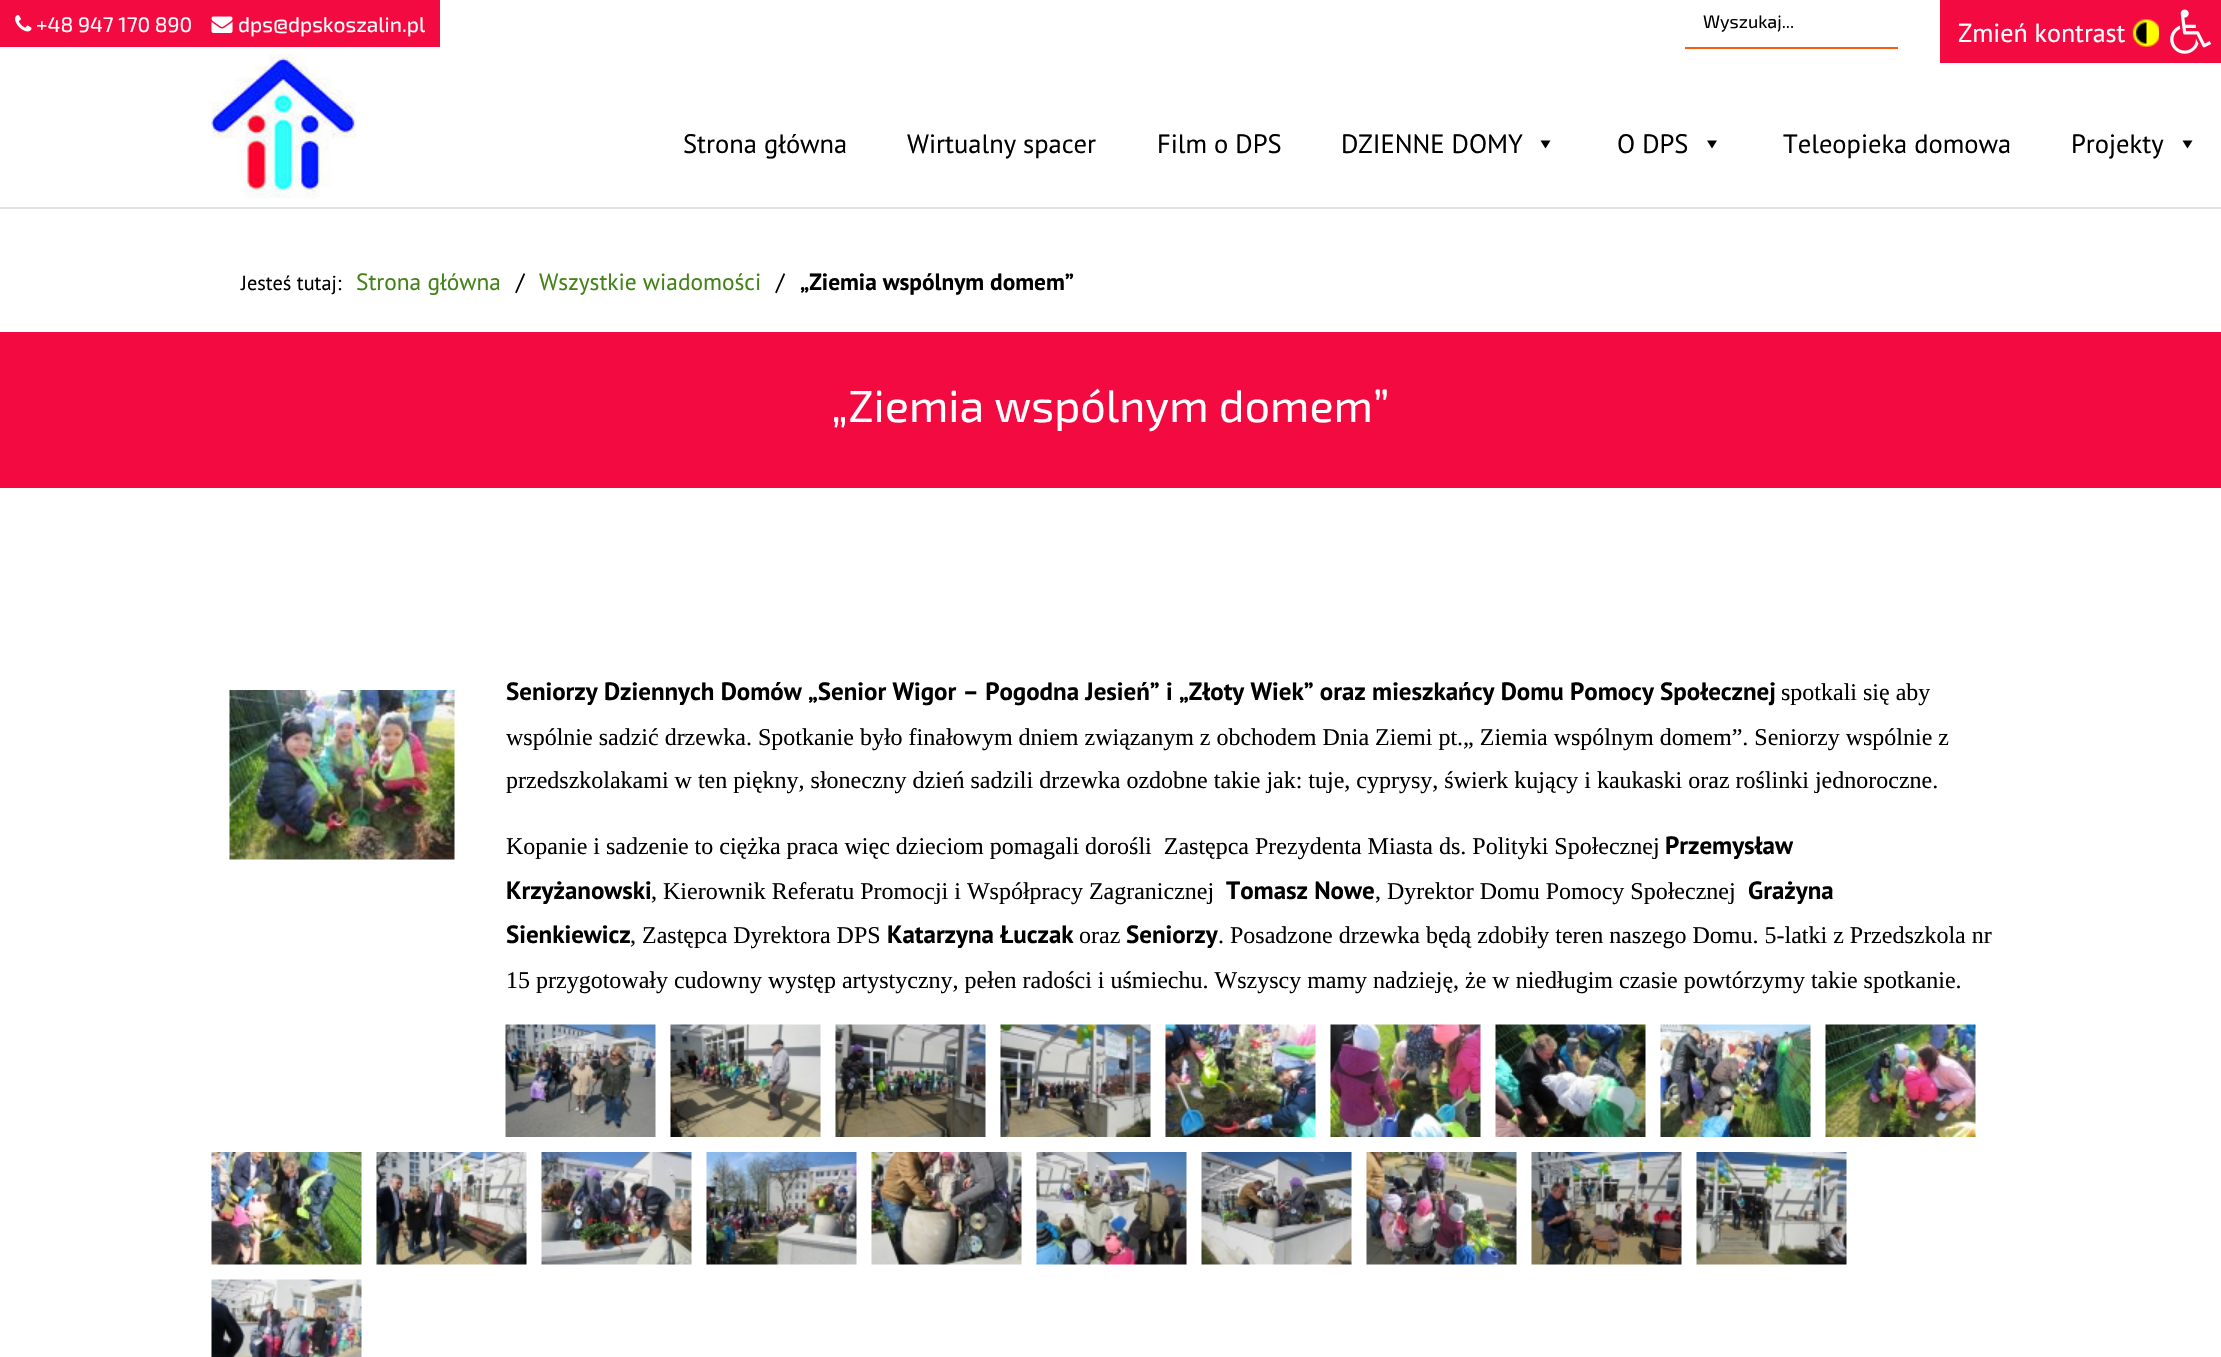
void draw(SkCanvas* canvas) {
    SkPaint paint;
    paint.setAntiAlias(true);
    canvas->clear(0xFFFFFFFF);
    paint.setColor(0xFFE2E2E2);
    canvas->drawRect(SkRect::MakeXYWH(0, 207, 2221, 2), paint);
    paint.setColor(0xFFF30A40);
    canvas->drawRect(SkRect::MakeXYWH(0, 0, 440, 47), paint);
    canvas->drawImageRect(SkImages::DeferredFromEncodedData(SkData::MakeFromFileName("img1.png")), SkRect::MakeXYWH(15, 15, 17, 17), SkSamplingOptions());
    SkFont font1(fontMgr->matchFamilyStyle("Exo 2", SkFontStyle::Normal()), 21);
    font1.setSubpixel(true);
    paint.setColor(0xFFFFFFFF);
    canvas->drawString("+48 947 170 890", 36, 32, font1, paint);
    canvas->drawImageRect(SkImages::DeferredFromEncodedData(SkData::MakeFromFileName("img2.png")), SkRect::MakeXYWH(211, 16, 22, 17), SkSamplingOptions());
    canvas->drawString("dps@dpskoszalin.pl", 238, 32, font1, paint);
    paint.setColor(0xFFFA5B0F);
    canvas->drawRect(SkRect::MakeXYWH(1685, 47, 213, 2), paint);
    SkFont font2(fontMgr->matchFamilyStyle("Exo 2", SkFontStyle::Normal()), 18);
    font2.setSubpixel(true);
    paint.setColor(0xFF000000);
    canvas->drawString("Wyszukaj...", 1703, 28, font2, paint);
    paint.setColor(0xFFF30A40);
    canvas->drawRect(SkRect::MakeXYWH(1940, 0, 281, 63), paint);
    SkFont font3(fontMgr->matchFamilyStyle("PT Sans", SkFontStyle::Normal()), 25);
    font3.setSubpixel(true);
    paint.setColor(0xFFFFFFFF);
    canvas->drawString("Zmień kontrast", 1958, 42, font3, paint);
    canvas->drawImageRect(SkImages::DeferredFromEncodedData(SkData::MakeFromFileName("img3.png")), SkRect::MakeXYWH(2132, 19, 27, 28), SkSamplingOptions());
    canvas->drawImageRect(SkImages::DeferredFromEncodedData(SkData::MakeFromFileName("img4.png")), SkRect::MakeXYWH(211, 54, 146, 145), SkSamplingOptions());
    SkFont font4(fontMgr->matchFamilyStyle("PT Sans", SkFontStyle::Normal()), 25.5f);
    font4.setSubpixel(true);
    paint.setColor(0xFF000000);
    canvas->drawString("Strona główna", 683, 153, font4, paint);
    canvas->drawString("Wirtualny spacer", 907, 153, font4, paint);
    canvas->drawString("Film o DPS", 1157, 153, font4, paint);
    canvas->drawString("DZIENNE DOMY", 1341, 153, font4, paint);
    canvas->drawPath(SkPathBuilder().moveTo(1550.5f, 140.5f).lineTo(1545.5f, 148.5f).lineTo(1540.5f, 140.5f).close().detach(), paint);
    canvas->drawString("O DPS", 1617, 153, font4, paint);
    canvas->drawPath(SkPathBuilder().moveTo(1717, 140.5f).lineTo(1712, 148.5f).lineTo(1707, 140.5f).close().detach(), paint);
    canvas->drawString("Teleopieka domowa", 1783, 153, font4, paint);
    canvas->drawString("Projekty", 2071, 153, font4, paint);
    canvas->drawPath(SkPathBuilder().moveTo(2192.5f, 140.5f).lineTo(2187.5f, 148.5f).lineTo(2182.5f, 140.5f).close().detach(), paint);
    SkFont font5(fontMgr->matchFamilyStyle("PT Sans", SkFontStyle::Normal()), 19.5f);
    font5.setSubpixel(true);
    canvas->drawString("Jesteś tutaj:", 241, 290, font5, paint);
    SkFont font6(fontMgr->matchFamilyStyle("PT Sans", SkFontStyle::Normal()), 22.5f);
    font6.setSubpixel(true);
    paint.setColor(0xFF428217);
    canvas->drawString("Strona główna", 356, 290, font6, paint);
    paint.setColor(0xFF000000);
    canvas->drawString("/", 516, 290, font6, paint);
    paint.setColor(0xFF428217);
    canvas->drawString("Wszystkie wiadomości", 539, 290, font6, paint);
    paint.setColor(0xFF000000);
    canvas->drawString("/", 776, 290, font6, paint);
    SkFont font7(fontMgr->matchFamilyStyle("PT Sans", SkFontStyle::Bold()), 22.5f);
    font7.setSubpixel(true);
    canvas->drawString("„Ziemia wspólnym domem”", 800, 290, font7, paint);
    paint.setColor(0xFFF30A40);
    canvas->drawRect(SkRect::MakeXYWH(0, 332, 2221, 156), paint);
    SkFont font8(fontMgr->matchFamilyStyle("Exo 2", SkFontStyle::Normal()), 45);
    font8.setSubpixel(true);
    paint.setColor(0xFFFFFFFF);
    canvas->drawString("„Ziemia wspólnym domem”", 831, 422, font8, paint);
    canvas->drawImageRect(SkImages::DeferredFromEncodedData(SkData::MakeFromFileName("img5.png")), SkRect::MakeXYWH(229, 690, 226, 170), SkSamplingOptions());
    SkFont font9(fontMgr->matchFamilyStyle("PT Sans", SkFontStyle::Bold()), 24);
    font9.setSubpixel(true);
    paint.setColor(0xFF000000);
    canvas->drawString("Seniorzy Dziennych Domów „Senior Wigor – Pogodna Jesień” i „Złoty Wiek” oraz mieszkańcy Domu Pomocy Społecznej", 506, 700, font9, paint);
    SkFont font10(fontMgr->matchFamilyStyle("Liberation Serif", SkFontStyle::Normal()), 24);
    font10.setSubpixel(true);
    canvas->drawString("spotkali się aby", 1781, 700, font10, paint);
    canvas->drawString("wspólnie sadzić drzewka. Spotkanie było finałowym dniem związanym z obchodem Dnia Ziemi pt.„ Ziemia wspólnym domem”. Seniorzy wspólnie z", 506, 745, font10, paint);
    canvas->drawString("przedszkolakami w ten piękny, słoneczny dzień sadzili drzewka ozdobne takie jak: tuje, cyprysy, świerk kujący i kaukaski oraz roślinki jednoroczne.", 506, 788, font10, paint);
    canvas->drawString("Kopanie i sadzenie to ciężka praca więc dzieciom pomagali dorośli  Zastępca Prezydenta Miasta ds. Polityki Społecznej", 506, 854, font10, paint);
    canvas->drawString("Przemysław", 1665, 854, font9, paint);
    canvas->drawString("Krzyżanowski", 506, 899, font9, paint);
    canvas->drawString(", Kierownik Referatu Promocji i Współpracy Zagranicznej", 651, 899, font10, paint);
    canvas->drawString("Tomasz Nowe", 1226, 899, font9, paint);
    canvas->drawString(", Dyrektor Domu Pomocy Społecznej", 1375, 899, font10, paint);
    canvas->drawString("Grażyna", 1748, 899, font9, paint);
    canvas->drawString("Sienkiewicz", 506, 943, font9, paint);
    canvas->drawString(", Zastępca Dyrektora DPS", 630, 943, font10, paint);
    canvas->drawString("Katarzyna Łuczak", 887, 943, font9, paint);
    canvas->drawString("oraz", 1079, 943, font10, paint);
    canvas->drawString("Seniorzy", 1126, 943, font9, paint);
    canvas->drawString(". Posadzone drzewka będą zdobiły teren naszego Domu. 5-latki z Przedszkola nr", 1218, 943, font10, paint);
    canvas->drawString("15 przygotowały cudowny występ artystyczny, pełen radości i uśmiechu. Wszyscy mamy nadzieję, że w niedługim czasie powtórzymy takie spotkanie.", 506, 988, font10, paint);
    canvas->drawImageRect(SkImages::DeferredFromEncodedData(SkData::MakeFromFileName("img6.png")), SkRect::MakeXYWH(505, 1024, 151, 113), SkSamplingOptions());
    canvas->drawImageRect(SkImages::DeferredFromEncodedData(SkData::MakeFromFileName("img7.png")), SkRect::MakeXYWH(670, 1024, 151, 113), SkSamplingOptions());
    canvas->drawImageRect(SkImages::DeferredFromEncodedData(SkData::MakeFromFileName("img8.png")), SkRect::MakeXYWH(835, 1024, 151, 113), SkSamplingOptions());
    canvas->drawImageRect(SkImages::DeferredFromEncodedData(SkData::MakeFromFileName("img9.png")), SkRect::MakeXYWH(1000, 1024, 151, 113), SkSamplingOptions());
    canvas->drawImageRect(SkImages::DeferredFromEncodedData(SkData::MakeFromFileName("img10.png")), SkRect::MakeXYWH(1165, 1024, 151, 113), SkSamplingOptions());
    canvas->drawImageRect(SkImages::DeferredFromEncodedData(SkData::MakeFromFileName("img11.png")), SkRect::MakeXYWH(1330, 1024, 151, 113), SkSamplingOptions());
    canvas->drawImageRect(SkImages::DeferredFromEncodedData(SkData::MakeFromFileName("img12.png")), SkRect::MakeXYWH(1495, 1024, 151, 113), SkSamplingOptions());
    canvas->drawImageRect(SkImages::DeferredFromEncodedData(SkData::MakeFromFileName("img13.png")), SkRect::MakeXYWH(1660, 1024, 151, 113), SkSamplingOptions());
    canvas->drawImageRect(SkImages::DeferredFromEncodedData(SkData::MakeFromFileName("img14.png")), SkRect::MakeXYWH(1825, 1024, 151, 113), SkSamplingOptions());
    canvas->drawImageRect(SkImages::DeferredFromEncodedData(SkData::MakeFromFileName("img15.png")), SkRect::MakeXYWH(211, 1152, 151, 113), SkSamplingOptions());
    canvas->drawImageRect(SkImages::DeferredFromEncodedData(SkData::MakeFromFileName("img16.png")), SkRect::MakeXYWH(376, 1152, 151, 113), SkSamplingOptions());
    canvas->drawImageRect(SkImages::DeferredFromEncodedData(SkData::MakeFromFileName("img17.png")), SkRect::MakeXYWH(541, 1152, 151, 113), SkSamplingOptions());
    canvas->drawImageRect(SkImages::DeferredFromEncodedData(SkData::MakeFromFileName("img18.png")), SkRect::MakeXYWH(706, 1152, 151, 113), SkSamplingOptions());
    canvas->drawImageRect(SkImages::DeferredFromEncodedData(SkData::MakeFromFileName("img19.png")), SkRect::MakeXYWH(871, 1152, 151, 113), SkSamplingOptions());
    canvas->drawImageRect(SkImages::DeferredFromEncodedData(SkData::MakeFromFileName("img20.png")), SkRect::MakeXYWH(1036, 1152, 151, 113), SkSamplingOptions());
    canvas->drawImageRect(SkImages::DeferredFromEncodedData(SkData::MakeFromFileName("img21.png")), SkRect::MakeXYWH(1201, 1152, 151, 113), SkSamplingOptions());
    canvas->drawImageRect(SkImages::DeferredFromEncodedData(SkData::MakeFromFileName("img22.png")), SkRect::MakeXYWH(1366, 1152, 151, 113), SkSamplingOptions());
    canvas->drawImageRect(SkImages::DeferredFromEncodedData(SkData::MakeFromFileName("img23.png")), SkRect::MakeXYWH(1531, 1152, 151, 113), SkSamplingOptions());
    canvas->drawImageRect(SkImages::DeferredFromEncodedData(SkData::MakeFromFileName("img24.png")), SkRect::MakeXYWH(1696, 1152, 151, 113), SkSamplingOptions());
    canvas->drawImageRect(SkImages::DeferredFromEncodedData(SkData::MakeFromFileName("img25.png")), SkRect::MakeXYWH(211, 1279, 151, 78), SkSamplingOptions());
    canvas->drawImageRect(SkImages::DeferredFromEncodedData(SkData::MakeFromFileName("img26.png")), SkRect::MakeXYWH(2170, 9, 42, 45), SkSamplingOptions());
}
